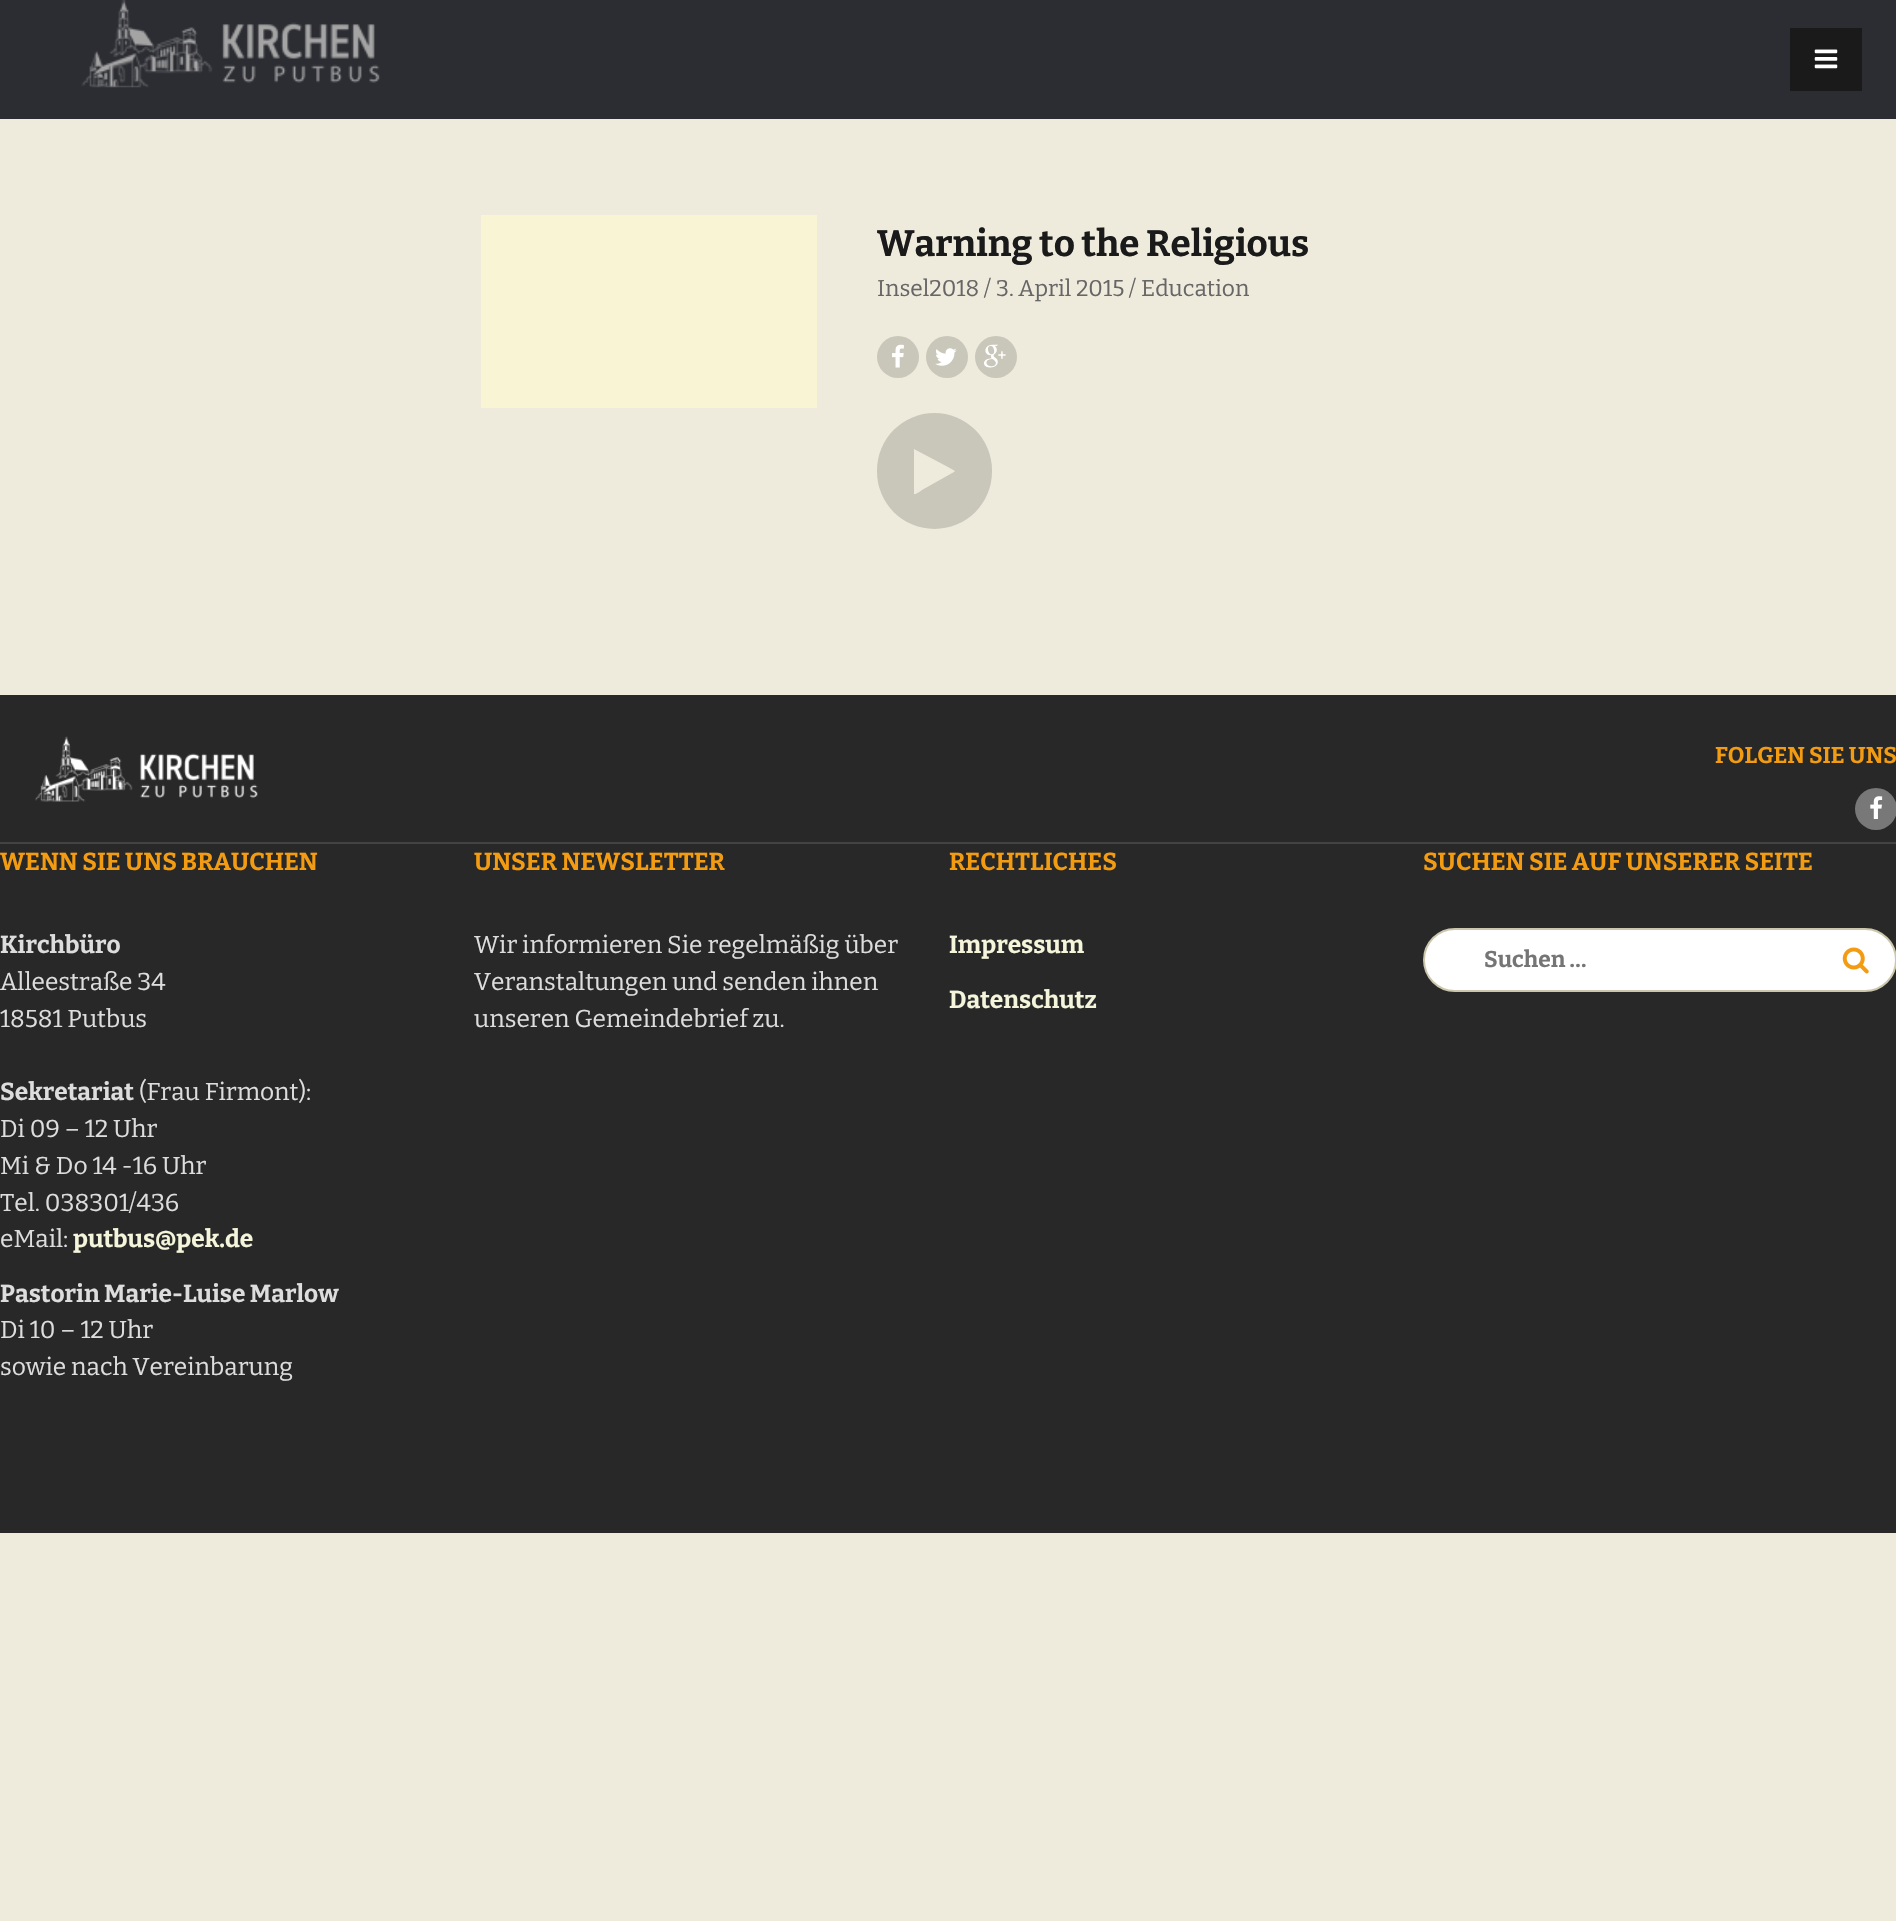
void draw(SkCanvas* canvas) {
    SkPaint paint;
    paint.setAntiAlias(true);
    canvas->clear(0xFFEEEBDD);
    paint.setColor(0xFF2C2D33);
    canvas->drawRect(SkRect::MakeXYWH(0, 0, 1896, 119), paint);
    canvas->drawImageRect(SkImages::DeferredFromEncodedData(SkData::MakeFromFileName("img1.png")), SkRect::MakeXYWH(81, 0, 299, 88), SkSamplingOptions());
    paint.setColor(0xFF1A1A1A);
    canvas->drawRect(SkRect::MakeXYWH(1790, 28, 72, 63), paint);
    canvas->drawImageRect(SkImages::DeferredFromEncodedData(SkData::MakeFromFileName("img2.png")), SkRect::MakeXYWH(1814, 49, 24, 20), SkSamplingOptions());
    paint.setColor(0xFFF9F4D4);
    canvas->drawRect(SkRect::MakeXYWH(481, 215, 336, 193), paint);
    SkFont font1(fontMgr->matchFamilyStyle("Bitter", SkFontStyle::Bold()), 36.75f);
    font1.setSubpixel(true);
    paint.setColor(0xFF1A1A1A);
    canvas->drawString("Warning to the Religious", 877, 256, font1, paint);
    SkFont font2(fontMgr->matchFamilyStyle("Bitter", SkFontStyle::Normal()), 22.75f);
    font2.setSubpixel(true);
    paint.setColor(0xFF676666);
    canvas->drawString("Insel2018 /", 877, 296, font2, paint);
    canvas->drawString("3. April 2015 /", 996, 296, font2, paint);
    canvas->drawString("Education", 1141, 296, font2, paint);
    paint.setColor(0xFFC9C6BA);
    canvas->drawCircle(898, 357, 21, paint);
    canvas->drawImageRect(SkImages::DeferredFromEncodedData(SkData::MakeFromFileName("img3.png")), SkRect::MakeXYWH(892, 344, 12, 24), SkSamplingOptions());
    canvas->drawCircle(947, 357, 21, paint);
    canvas->drawImageRect(SkImages::DeferredFromEncodedData(SkData::MakeFromFileName("img4.png")), SkRect::MakeXYWH(935, 348, 22, 18), SkSamplingOptions());
    canvas->drawCircle(996, 357, 21, paint);
    canvas->drawImageRect(SkImages::DeferredFromEncodedData(SkData::MakeFromFileName("img5.png")), SkRect::MakeXYWH(984, 344, 22, 24), SkSamplingOptions());
    canvas->drawRoundRect(SkRect::MakeXYWH(877, 413, 115, 116), 57.5f, 57.5f, paint);
    paint.setColor(0xFFEEEBDD);
    canvas->drawPath(SkPathBuilder().moveTo(954, 472).lineTo(922, 490).cubicTo(921, 491, 915, 495, 914, 494).lineTo(914, 449).lineTo(948, 467).lineTo(955, 471).close().detach(), paint);
    paint.setColor(0xFF282828);
    canvas->drawRect(SkRect::MakeXYWH(0, 695, 1896, 838), paint);
    canvas->drawImageRect(SkImages::DeferredFromEncodedData(SkData::MakeFromFileName("img6.png")), SkRect::MakeXYWH(35, 736, 223, 66), SkSamplingOptions());
    SkFont font3(fontMgr->matchFamilyStyle("Bitter", SkFontStyle::Bold()), 22.75f);
    font3.setSubpixel(true);
    paint.setColor(0xFFF39C12);
    canvas->drawString("FOLGEN SIE UNS", 1715, 763, font3, paint);
    paint.setColor(0xFF787878);
    canvas->drawCircle(1876, 809, 21, paint);
    canvas->drawImageRect(SkImages::DeferredFromEncodedData(SkData::MakeFromFileName("img7.png")), SkRect::MakeXYWH(1870, 796, 13, 23), SkSamplingOptions());
    paint.setColor(0xFF434343);
    canvas->drawRect(SkRect::MakeXYWH(0, 842, 1896, 2), paint);
    SkFont font4(fontMgr->matchFamilyStyle("Bitter", SkFontStyle::Bold()), 24.5f);
    font4.setSubpixel(true);
    paint.setColor(0xFFF39C12);
    canvas->drawString("WENN SIE UNS BRAUCHEN", 0, 870, font4, paint);
    paint.setColor(0xFFDDDDDD);
    canvas->drawString("Kirchbüro", 0, 953, font4, paint);
    SkFont font5(fontMgr->matchFamilyStyle("Bitter", SkFontStyle::Normal()), 24.5f);
    font5.setSubpixel(true);
    canvas->drawString("Alleestraße 34", 0, 990, font5, paint);
    canvas->drawString("18581 Putbus", 0, 1027, font5, paint);
    canvas->drawString("Sekretariat", 0, 1100, font4, paint);
    canvas->drawString("(Frau Firmont):", 139, 1100, font5, paint);
    canvas->drawString("Di 09 – 12 Uhr", 0, 1137, font5, paint);
    canvas->drawString("Mi & Do 14 -16 Uhr", 0, 1174, font5, paint);
    canvas->drawString("Tel. 038301/436", 0, 1211, font5, paint);
    canvas->drawString("eMail:", 0, 1247, font5, paint);
    paint.setColor(0xFFF5F5DC);
    canvas->drawString("putbus@pek.de", 73, 1247, font4, paint);
    paint.setColor(0xFFDDDDDD);
    canvas->drawString("Pastorin Marie-Luise Marlow", 0, 1302, font4, paint);
    canvas->drawString("Di 10 – 12 Uhr", 0, 1338, font5, paint);
    canvas->drawString("sowie nach Vereinbarung", 0, 1375, font5, paint);
    paint.setColor(0xFFF39C12);
    canvas->drawString("UNSER NEWSLETTER", 474, 870, font4, paint);
    paint.setColor(0xFFDDDDDD);
    canvas->drawString("Wir informieren Sie regelmäßig über", 474, 953, font5, paint);
    canvas->drawString("Veranstaltungen und senden ihnen", 474, 990, font5, paint);
    canvas->drawString("unseren Gemeindebrief zu.", 474, 1027, font5, paint);
    paint.setColor(0xFFF39C12);
    canvas->drawString("RECHTLICHES", 949, 870, font4, paint);
    paint.setColor(0xFFF5F5DC);
    canvas->drawString("Impressum", 949, 953, font4, paint);
    canvas->drawString("Datenschutz", 949, 1008, font4, paint);
    paint.setColor(0xFFF39C12);
    canvas->drawString("SUCHEN SIE AUF UNSERER SEITE", 1423, 870, font4, paint);
    paint.setColor(0xFFFFFFFF);
    canvas->drawRoundRect(SkRect::MakeXYWH(1424, 929, 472, 62), 31, 31, paint);
    paint.setStyle(SkPaint::kStroke_Style);
    paint.setStrokeWidth(2);
    paint.setColor(0xFFCBC6AC);
    canvas->drawRoundRect(SkRect::MakeXYWH(1424, 929, 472, 62), 31, 31, paint);
    paint.setStyle(SkPaint::kFill_Style);
    paint.setColor(0xFF757575);
    canvas->drawString("Suchen …", 1484, 967, font3, paint);
    canvas->drawImageRect(SkImages::DeferredFromEncodedData(SkData::MakeFromFileName("img8.png")), SkRect::MakeXYWH(1842, 947, 27, 27), SkSamplingOptions());
}
